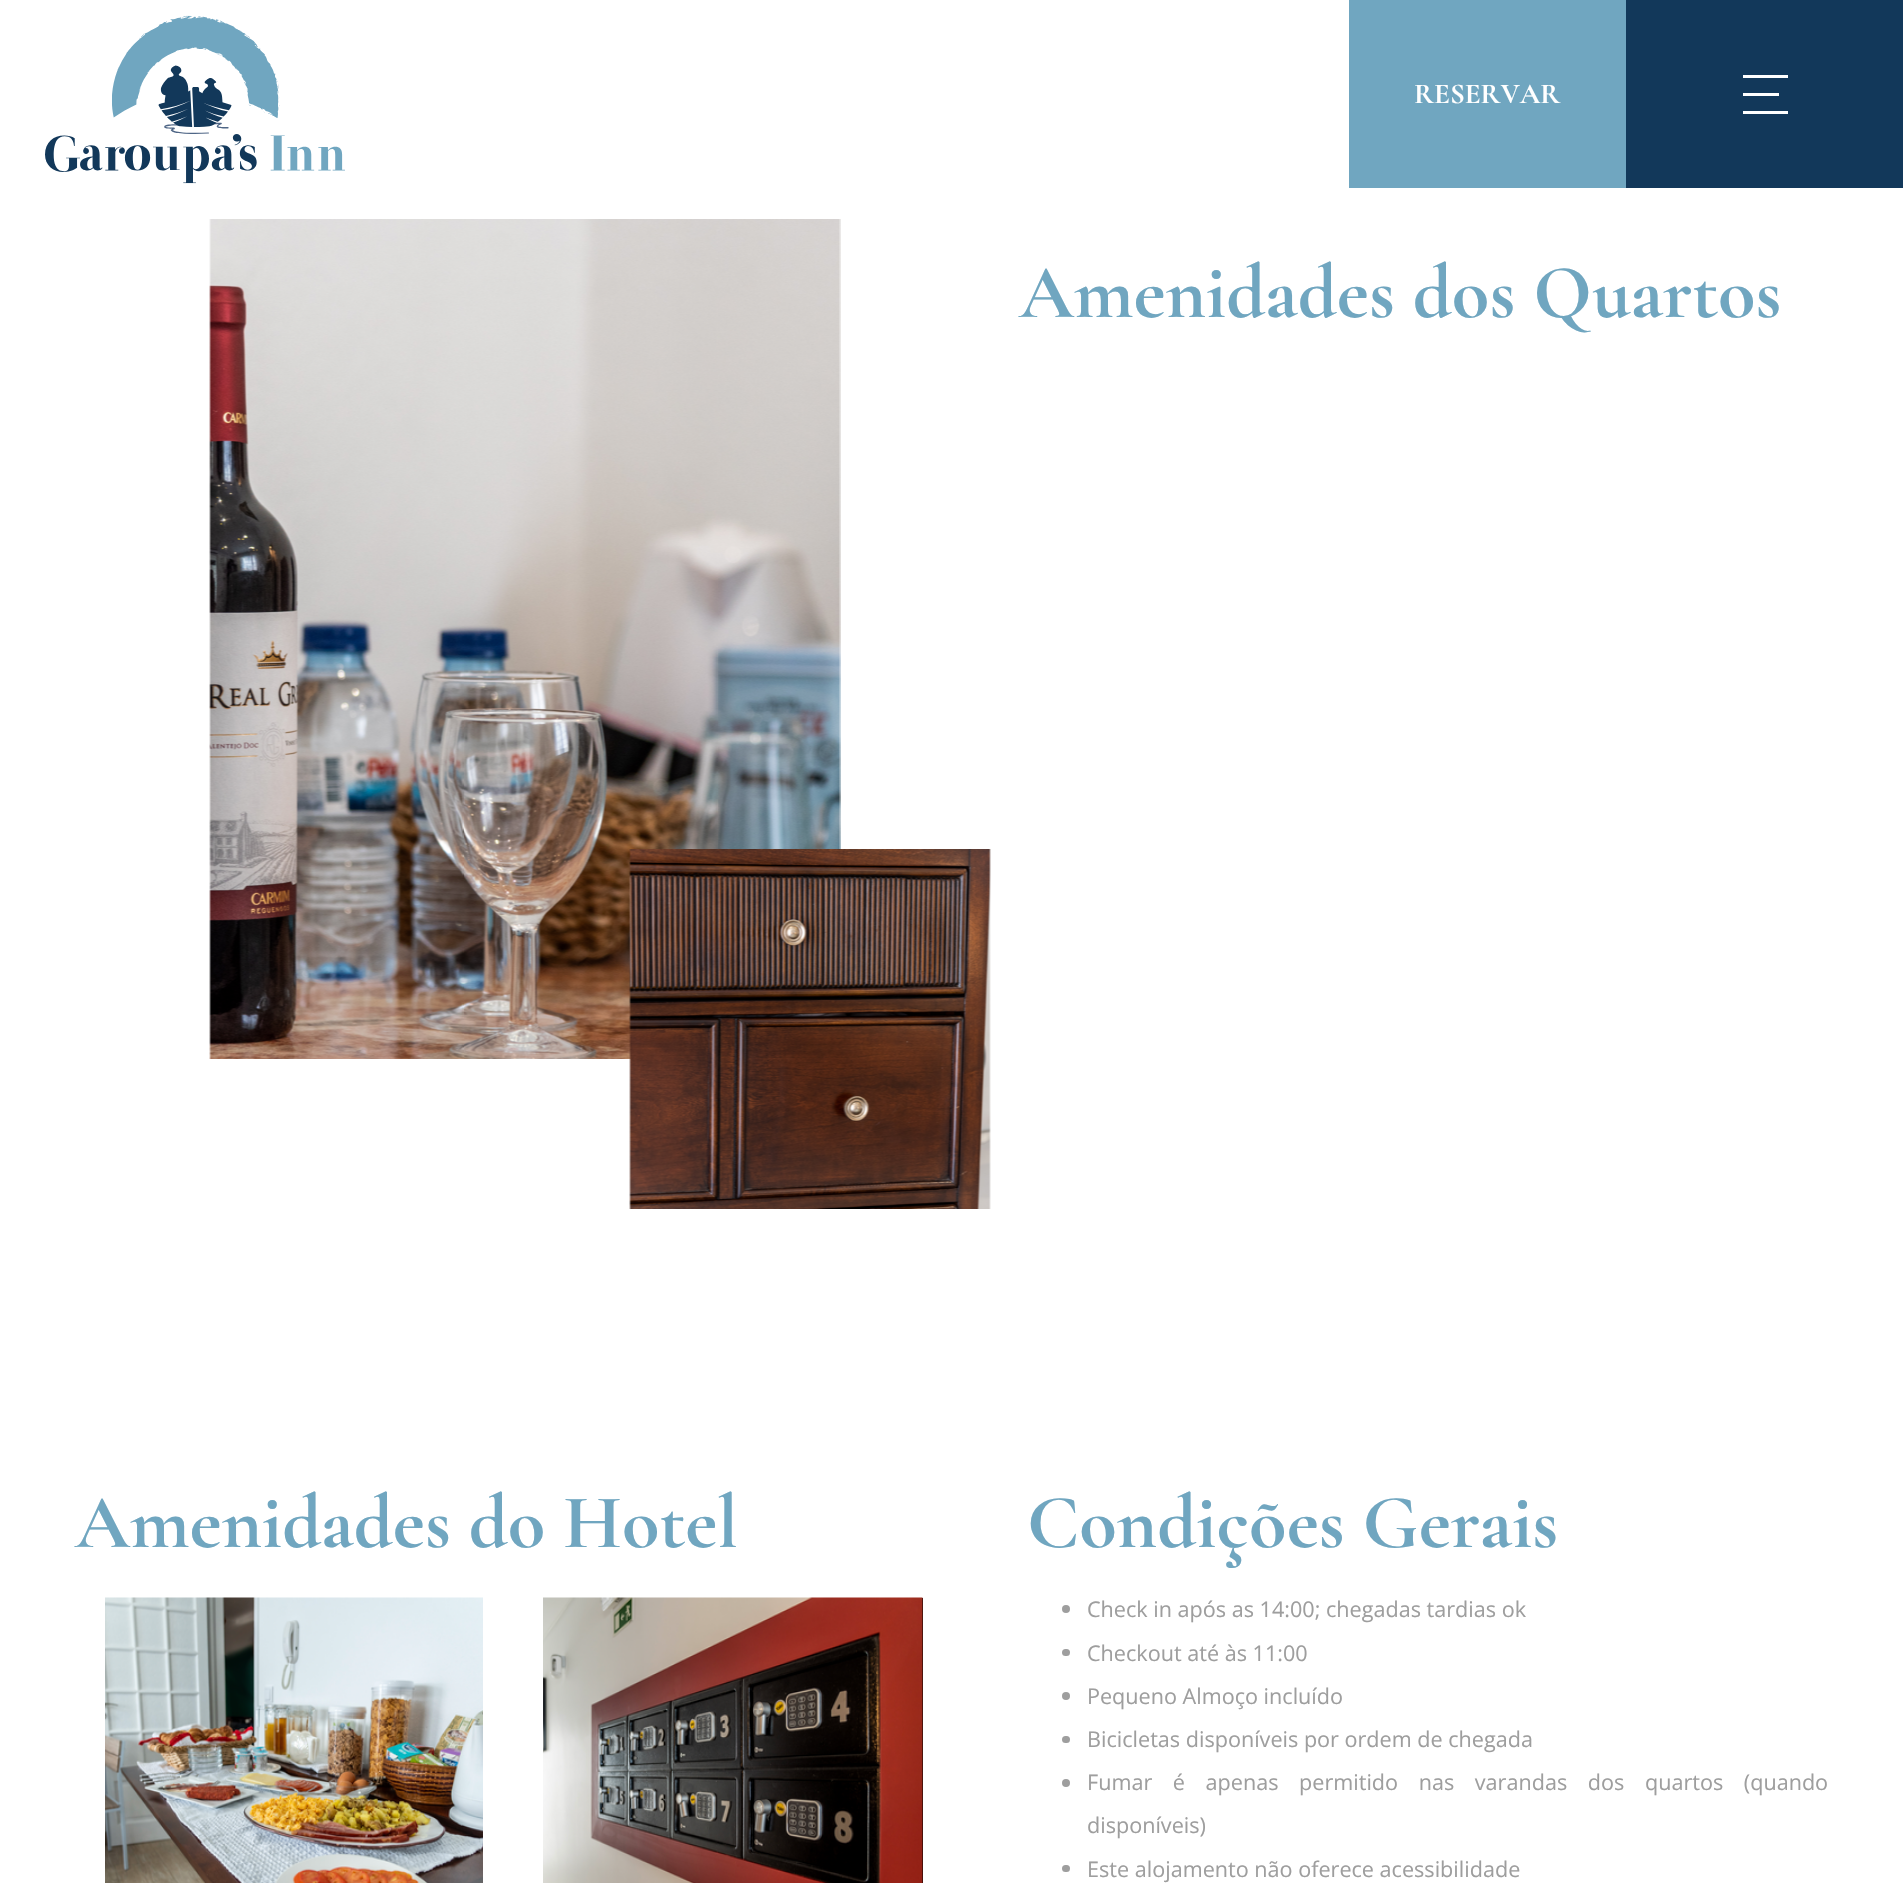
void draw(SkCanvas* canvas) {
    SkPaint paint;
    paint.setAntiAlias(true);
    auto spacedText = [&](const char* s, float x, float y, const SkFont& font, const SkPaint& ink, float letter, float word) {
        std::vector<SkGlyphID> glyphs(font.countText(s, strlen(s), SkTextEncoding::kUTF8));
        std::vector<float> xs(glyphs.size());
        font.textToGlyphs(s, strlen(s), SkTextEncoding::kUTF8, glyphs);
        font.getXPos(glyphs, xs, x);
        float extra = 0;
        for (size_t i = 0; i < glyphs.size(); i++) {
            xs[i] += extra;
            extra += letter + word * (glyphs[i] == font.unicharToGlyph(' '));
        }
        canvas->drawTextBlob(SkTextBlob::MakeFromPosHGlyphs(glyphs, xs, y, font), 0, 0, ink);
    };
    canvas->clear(0xFFFFFFFF);
    canvas->drawImageRect(SkImages::DeferredFromEncodedData(SkData::MakeFromFileName("img1.png")), SkRect::MakeXYWH(45, 15, 300, 169), SkSamplingOptions());
    paint.setColor(0xFF70A6C0);
    canvas->drawRect(SkRect::MakeXYWH(1349, 0, 277, 188), paint);
    SkFont font1(fontMgr->matchFamilyStyle("Cormorant Garamond", SkFontStyle(300, SkFontStyle::kNormal_Width, SkFontStyle::kUpright_Slant)), 28.75f);
    font1.setSubpixel(true);
    paint.setColor(0xFFFFFFFF);
    canvas->drawString("RESERVAR", 1414, 103, font1, paint);
    paint.setColor(0xFF12385A);
    canvas->drawRect(SkRect::MakeXYWH(1626, 0, 277, 188), paint);
    paint.setColor(0xFFFFFFFF);
    canvas->drawRect(SkRect::MakeXYWH(1743, 75, 45, 3), paint);
    canvas->drawRect(SkRect::MakeXYWH(1743, 93, 36, 3), paint);
    canvas->drawRect(SkRect::MakeXYWH(1743, 111, 45, 3), paint);
    canvas->drawImageRect(SkImages::DeferredFromEncodedData(SkData::MakeFromFileName("img2.png")), SkRect::MakeXYWH(209, 219, 632, 840), SkSamplingOptions());
    SkFont font2(fontMgr->matchFamilyStyle("Cormorant Garamond", SkFontStyle(300, SkFontStyle::kNormal_Width, SkFontStyle::kUpright_Slant)), 76.75f);
    font2.setSubpixel(true);
    paint.setColor(0xFF70A6C0);
    canvas->drawString("Amenidades dos Quartos", 1019, 317, font2, paint);
    canvas->drawImageRect(SkImages::DeferredFromEncodedData(SkData::MakeFromFileName("img3.png")), SkRect::MakeXYWH(629, 849, 362, 360), SkSamplingOptions());
    canvas->drawString("Amenidades do Hotel", 75, 1547, font2, paint);
    canvas->drawImageRect(SkImages::DeferredFromEncodedData(SkData::MakeFromFileName("img4.png")), SkRect::MakeXYWH(105, 1597, 378, 286), SkSamplingOptions());
    paint.setColor(0xFF000000);
    canvas->drawRect(SkRect::MakeXYWH(922, 1598, 1, 285), paint);
    canvas->drawImageRect(SkImages::DeferredFromEncodedData(SkData::MakeFromFileName("img5.png")), SkRect::MakeXYWH(543, 1597, 380, 286), SkSamplingOptions());
    paint.setColor(0xFF70A6C0);
    canvas->drawString("Condições Gerais", 1027, 1547, font2, paint);
    paint.setColor(0xFF9E9E9E);
    canvas->drawCircle(1066, 1609, 4, paint);
    SkFont font3(fontMgr->matchFamilyStyle("Open Sans", SkFontStyle::Normal()), 21.6f);
    font3.setSubpixel(true);
    canvas->drawString("Check in após as 14:00; chegadas tardias ok", 1087, 1617, font3, paint);
    canvas->drawRoundRect(SkRect::MakeXYWH(1062, 1649, 8, 7), 3.5f, 3.5f, paint);
    canvas->drawString("Checkout até às 11:00", 1087, 1661, font3, paint);
    canvas->drawCircle(1066, 1696, 4, paint);
    canvas->drawString("Pequeno Almoço incluído", 1087, 1704, font3, paint);
    canvas->drawRoundRect(SkRect::MakeXYWH(1062, 1736, 8, 7), 3.5f, 3.5f, paint);
    canvas->drawString("Bicicletas disponíveis por ordem de chegada", 1087, 1747, font3, paint);
    canvas->drawCircle(1066, 1783, 4, paint);
    spacedText("Fumar é apenas permitido nas varandas dos quartos (quando", 1087, 1790, font3, paint, 0, 15);
    canvas->drawString("disponíveis)", 1087, 1833, font3, paint);
    canvas->drawRoundRect(SkRect::MakeXYWH(1062, 1865, 8, 7), 3.5f, 3.5f, paint);
    canvas->drawString("Este alojamento não oferece acessibilidade", 1087, 1877, font3, paint);
}
